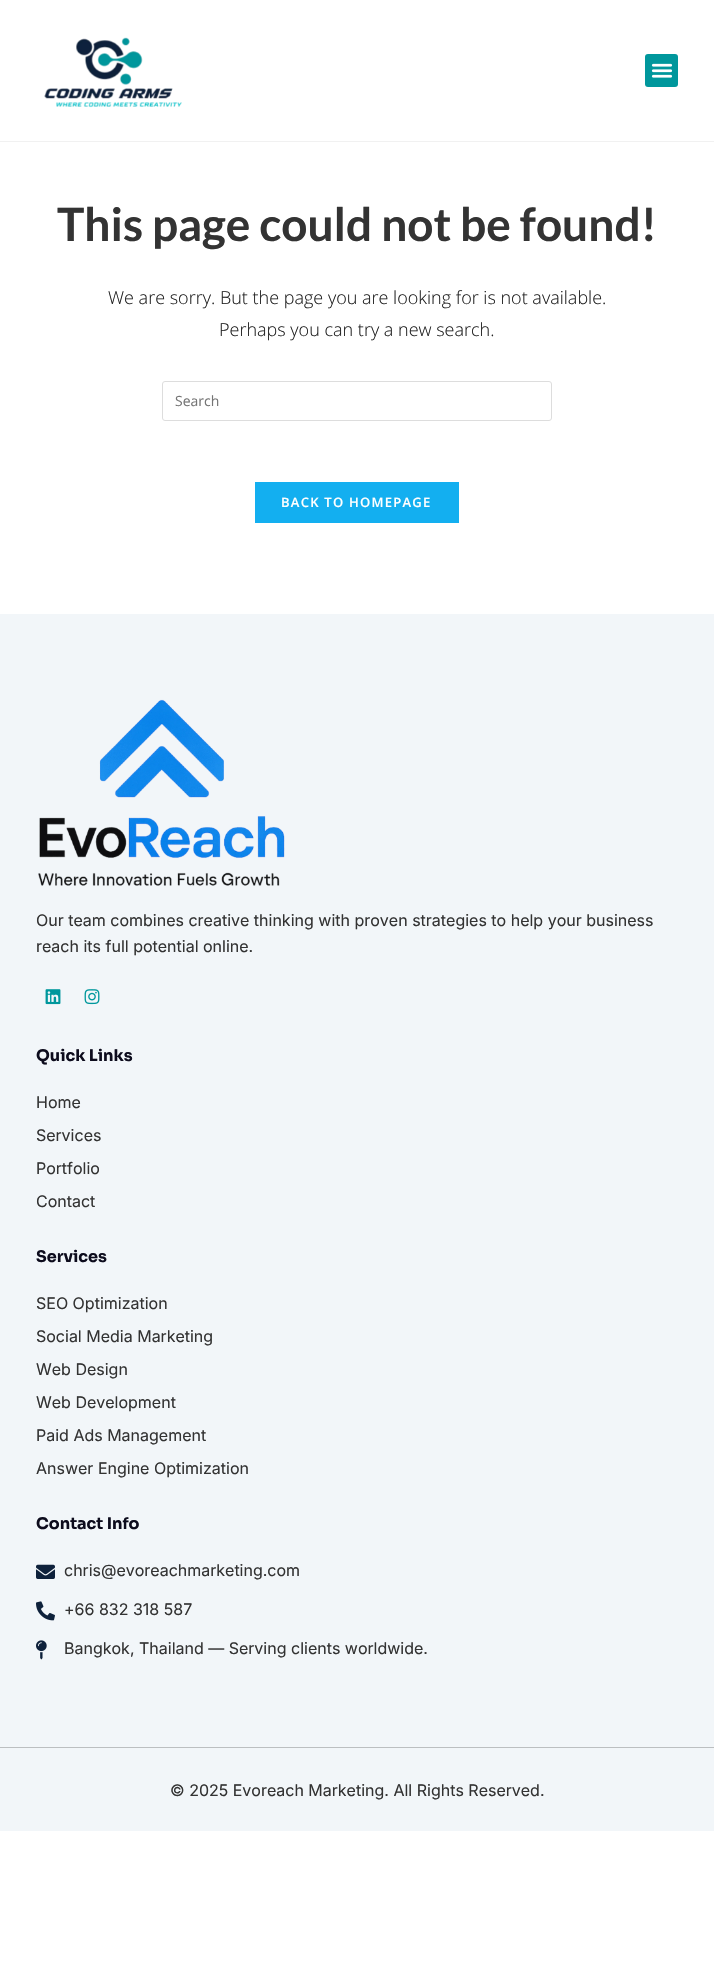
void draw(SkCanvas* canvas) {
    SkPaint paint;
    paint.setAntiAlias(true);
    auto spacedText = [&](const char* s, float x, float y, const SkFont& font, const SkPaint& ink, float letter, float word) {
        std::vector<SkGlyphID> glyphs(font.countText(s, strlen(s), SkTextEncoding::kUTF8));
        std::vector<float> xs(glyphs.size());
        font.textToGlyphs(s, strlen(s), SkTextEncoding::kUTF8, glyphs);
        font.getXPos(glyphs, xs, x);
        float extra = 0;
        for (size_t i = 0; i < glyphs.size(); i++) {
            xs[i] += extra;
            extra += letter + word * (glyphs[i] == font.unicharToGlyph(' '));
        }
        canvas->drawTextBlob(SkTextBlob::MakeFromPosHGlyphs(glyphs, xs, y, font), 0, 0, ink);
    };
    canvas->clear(0xFFFFFFFF);
    paint.setColor(0xFFF1F1F1);
    canvas->drawRect(SkRect::MakeXYWH(0, 141, 714, 1), paint);
    canvas->drawImageRect(SkImages::DeferredFromEncodedData(SkData::MakeFromFileName("img1.png")), SkRect::MakeXYWH(44, 37, 138, 71), SkSamplingOptions());
    paint.setColor(0xFF00979C);
    canvas->drawRoundRect(SkRect::MakeXYWH(645, 54, 33, 33), 3, 3, paint);
    canvas->drawImageRect(SkImages::DeferredFromEncodedData(SkData::MakeFromFileName("img2.png")), SkRect::MakeXYWH(651, 63, 22, 15), SkSamplingOptions());
    SkFont font1(fontMgr->matchFamilyStyle("Lato", SkFontStyle::Bold()), 46);
    font1.setSubpixel(true);
    paint.setColor(0xFF333333);
    canvas->drawString("This page could not be found!", 57, 241, font1, paint);
    SkFont font2(fontMgr->matchFamilyStyle("Open Sans", SkFontStyle(300, SkFontStyle::kNormal_Width, SkFontStyle::kUpright_Slant)), 18);
    font2.setSubpixel(true);
    paint.setColor(0xFF232323);
    canvas->drawString("We are sorry. But the page you are looking for is not available.", 108, 304, font2, paint);
    canvas->drawString("Perhaps you can try a new search.", 219, 336, font2, paint);
    paint.setStyle(SkPaint::kStroke_Style);
    paint.setStrokeWidth(1);
    paint.setColor(0xFFDDDDDD);
    canvas->drawRoundRect(SkRect::MakeXYWH(162.5f, 381.5f, 389, 39), 2.5f, 2.5f, paint);
    SkFont font3(fontMgr->matchFamilyStyle("Open Sans", SkFontStyle::Normal()), 14);
    font3.setSubpixel(true);
    paint.setStyle(SkPaint::kFill_Style);
    paint.setColor(0xFF757575);
    canvas->drawString("Search", 175, 406, font3, paint);
    paint.setColor(0xFF13AFF0);
    canvas->drawRect(SkRect::MakeXYWH(255, 482, 204, 41), paint);
    SkFont font4(fontMgr->matchFamilyStyle("Open Sans", SkFontStyle(600, SkFontStyle::kNormal_Width, SkFontStyle::kUpright_Slant)), 13);
    font4.setSubpixel(true);
    paint.setColor(0xFFFFFFFF);
    spacedText("BACK TO HOMEPAGE", 281, 507, font4, paint, 1.25f, 0);
    paint.setColor(0xFFF2F6F9);
    canvas->drawRect(SkRect::MakeXYWH(0, 614, 714, 1133), paint);
    canvas->drawImageRect(SkImages::DeferredFromEncodedData(SkData::MakeFromFileName("img3.png")), SkRect::MakeXYWH(38, 699, 247, 187), SkSamplingOptions());
    SkFont font5(fontMgr->matchFamilyStyle("Inter", SkFontStyle::Normal()), 16);
    font5.setSubpixel(true);
    paint.setColor(0xFF333333);
    canvas->drawString("Our team combines creative thinking with proven strategies to help your business", 36, 926, font5, paint);
    canvas->drawString("reach its full potential online.", 36, 952, font5, paint);
    canvas->drawImageRect(SkImages::DeferredFromEncodedData(SkData::MakeFromFileName("img4.png")), SkRect::MakeXYWH(45, 989, 16, 16), SkSamplingOptions());
    canvas->drawImageRect(SkImages::DeferredFromEncodedData(SkData::MakeFromFileName("img5.png")), SkRect::MakeXYWH(84, 989, 16, 16), SkSamplingOptions());
    SkFont font6(fontMgr->matchFamilyStyle("Sora", SkFontStyle::Bold()), 16);
    font6.setSubpixel(true);
    paint.setColor(0xFF0D0C1D);
    canvas->drawString("Quick Links", 36, 1061, font6, paint);
    paint.setColor(0xFF333333);
    canvas->drawString("Home", 36, 1108, font5, paint);
    canvas->drawString("Services", 36, 1141, font5, paint);
    canvas->drawString("Portfolio", 36, 1174, font5, paint);
    canvas->drawString("Contact", 36, 1207, font5, paint);
    paint.setColor(0xFF0D0C1D);
    canvas->drawString("Services", 36, 1262, font6, paint);
    paint.setColor(0xFF333333);
    canvas->drawString("SEO Optimization", 36, 1309, font5, paint);
    canvas->drawString("Social Media Marketing", 36, 1342, font5, paint);
    canvas->drawString("Web Design", 36, 1375, font5, paint);
    canvas->drawString("Web Development", 36, 1408, font5, paint);
    canvas->drawString("Paid Ads Management", 36, 1441, font5, paint);
    canvas->drawString("Answer Engine Optimization", 36, 1474, font5, paint);
    paint.setColor(0xFF0D0C1D);
    canvas->drawString("Contact Info", 36, 1529, font6, paint);
    canvas->drawImageRect(SkImages::DeferredFromEncodedData(SkData::MakeFromFileName("img6.png")), SkRect::MakeXYWH(36, 1564, 19, 15), SkSamplingOptions());
    paint.setColor(0xFF333333);
    canvas->drawString("chris@evoreachmarketing.com", 64, 1576, font5, paint);
    canvas->drawImageRect(SkImages::DeferredFromEncodedData(SkData::MakeFromFileName("img7.png")), SkRect::MakeXYWH(36, 1601, 19, 20), SkSamplingOptions());
    canvas->drawString("+66 832 318 587", 64, 1615, font5, paint);
    canvas->drawImageRect(SkImages::DeferredFromEncodedData(SkData::MakeFromFileName("img8.png")), SkRect::MakeXYWH(36, 1640, 11, 20), SkSamplingOptions());
    canvas->drawString("Bangkok, Thailand — Serving clients worldwide.", 64, 1654, font5, paint);
    paint.setColor(0xFFF2F6F9);
    canvas->drawRect(SkRect::MakeXYWH(0, 1748, 714, 83), paint);
    paint.setColor(0xFFBCBFC1);
    canvas->drawRect(SkRect::MakeXYWH(0, 1747, 714, 1), paint);
    paint.setColor(0xFF333333);
    canvas->drawString("© 2025 Evoreach Marketing. All Rights Reserved.", 170, 1796, font5, paint);
}
